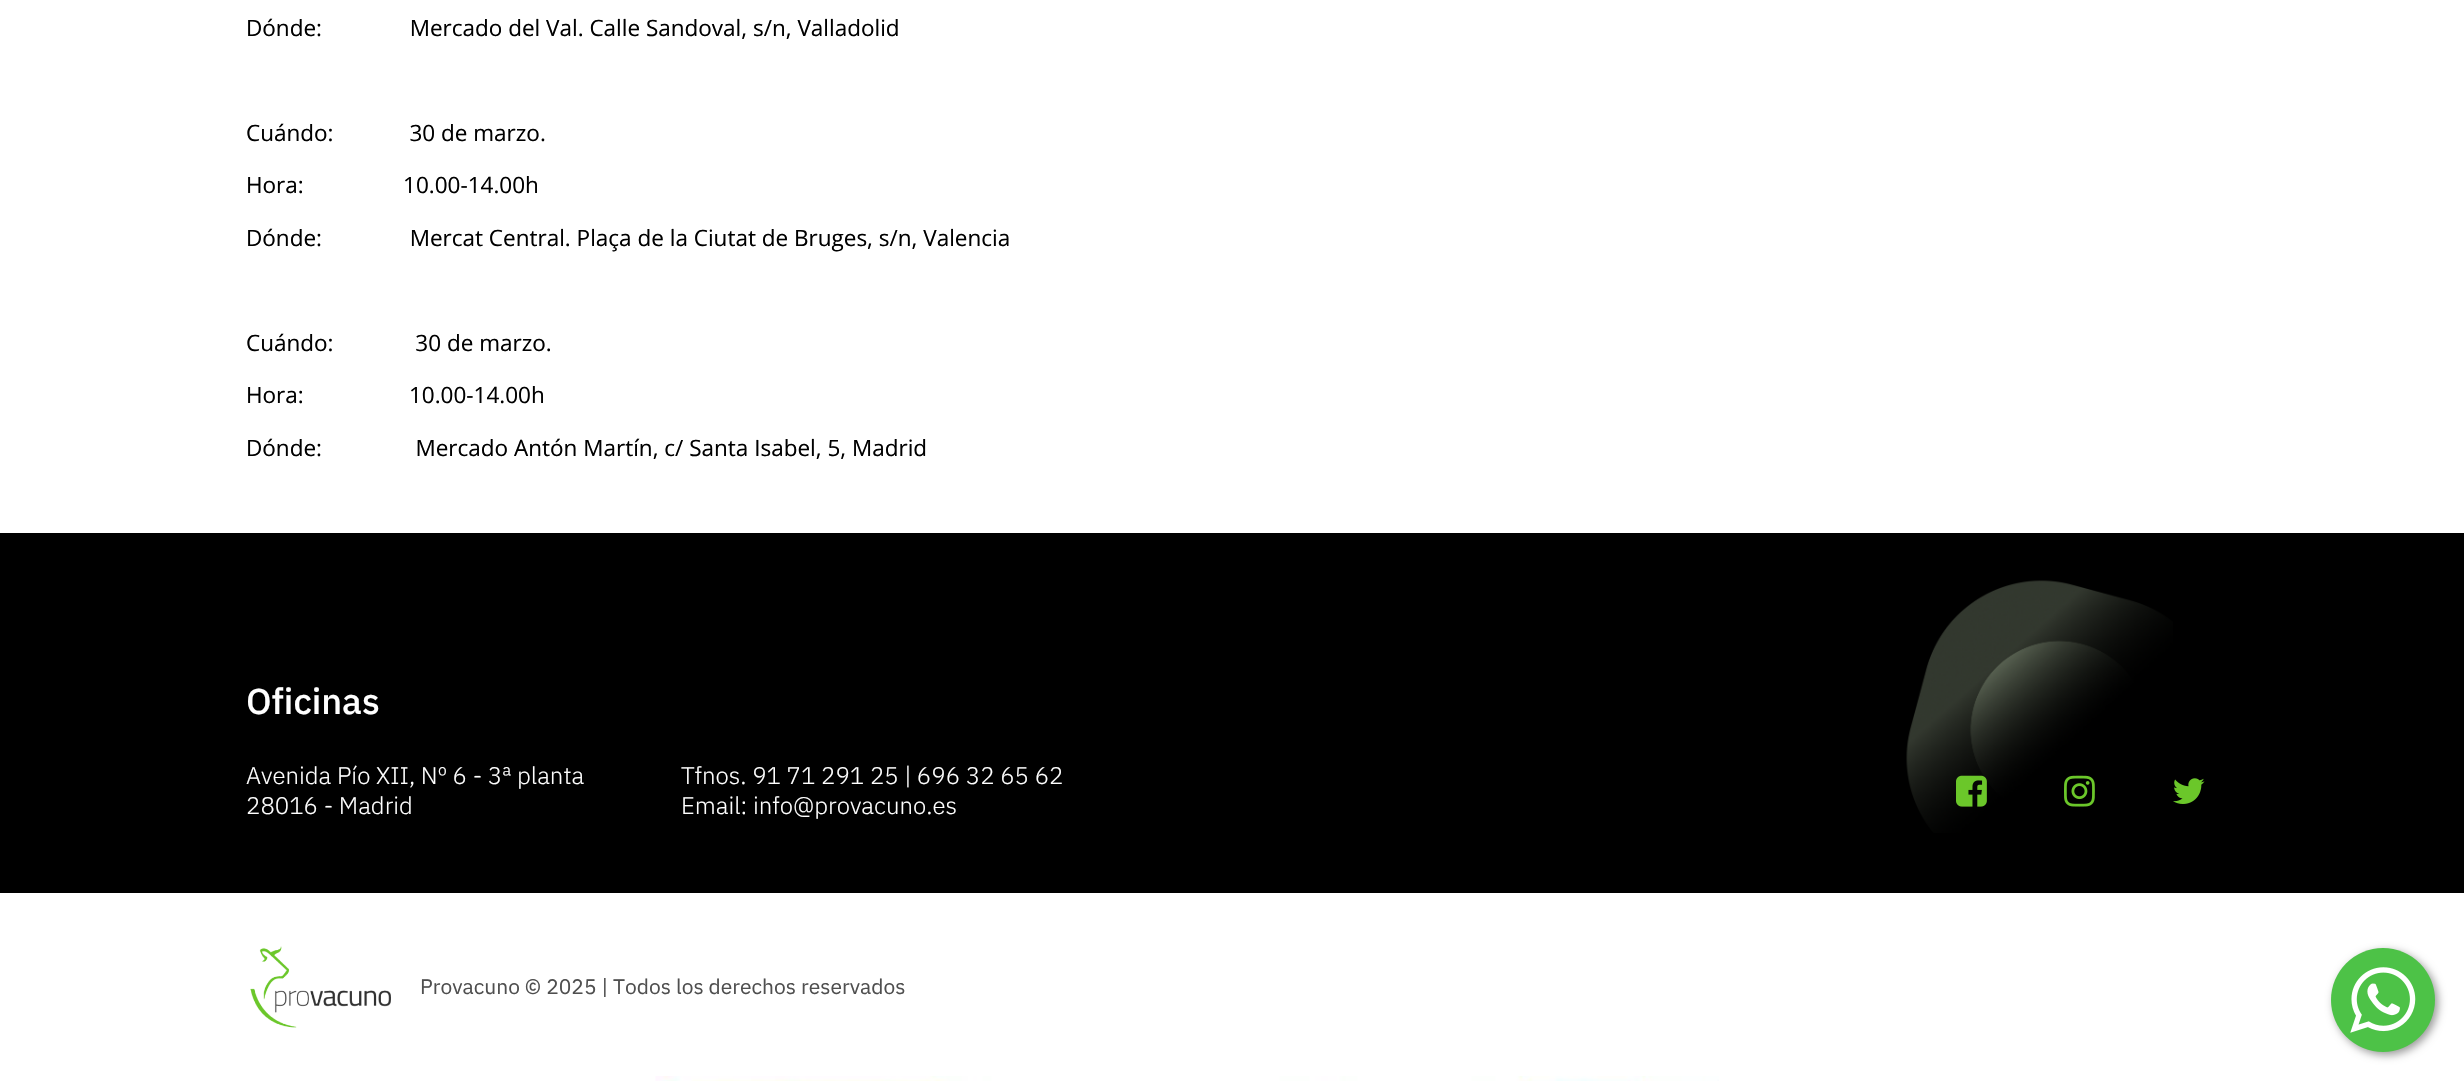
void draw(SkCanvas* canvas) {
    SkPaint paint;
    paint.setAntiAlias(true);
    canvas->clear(0xFFFFFFFF);
    SkFont font1(fontMgr->matchFamilyStyle("Open Sans", SkFontStyle::Normal()), 22.5f);
    font1.setSubpixel(true);
    paint.setColor(0xFF000000);
    canvas->drawString("Dónde:               Mercado del Val. Calle Sandoval, s/n, Valladolid", 246, 36, font1, paint);
    canvas->drawString("Cuándo:             30 de marzo.", 246, 141, font1, paint);
    canvas->drawString("Hora:                 10.00-14.00h", 246, 193, font1, paint);
    canvas->drawString("Dónde:               Mercat Central. Plaça de la Ciutat de Bruges, s/n, Valencia", 246, 246, font1, paint);
    canvas->drawString("Cuándo:              30 de marzo.", 246, 351, font1, paint);
    canvas->drawString("Hora:                  10.00-14.00h", 246, 403, font1, paint);
    canvas->drawString("Dónde:                Mercado Antón Martín, c/ Santa Isabel, 5, Madrid", 246, 456, font1, paint);
    canvas->drawRect(SkRect::MakeXYWH(0, 533, 2464, 360), paint);
    canvas->drawImageRect(SkImages::DeferredFromEncodedData(SkData::MakeFromFileName("img1.png")), SkRect::MakeXYWH(1906, 580, 267, 253), SkSamplingOptions());
    SkFont font2(fontMgr->matchFamilyStyle("IBM Plex Sans", SkFontStyle(500, SkFontStyle::kNormal_Width, SkFontStyle::kUpright_Slant)), 36);
    font2.setSubpixel(true);
    paint.setColor(0xFFFFFFFF);
    canvas->drawString("Oficinas", 246, 714, font2, paint);
    SkFont font3(fontMgr->matchFamilyStyle("IBM Plex Sans", SkFontStyle(300, SkFontStyle::kNormal_Width, SkFontStyle::kUpright_Slant)), 24);
    font3.setSubpixel(true);
    canvas->drawString("Avenida Pío XII, Nº 6 - 3ª planta", 246, 784, font3, paint);
    canvas->drawString("28016 - Madrid", 246, 814, font3, paint);
    canvas->drawString("Tfnos. 91 71 291 25 | 696 32 65 62", 681, 784, font3, paint);
    canvas->drawString("Email: info@provacuno.es", 681, 814, font3, paint);
    canvas->drawImageRect(SkImages::DeferredFromEncodedData(SkData::MakeFromFileName("img2.png")), SkRect::MakeXYWH(1956, 775, 31, 32), SkSamplingOptions());
    canvas->drawImageRect(SkImages::DeferredFromEncodedData(SkData::MakeFromFileName("img3.png")), SkRect::MakeXYWH(2064, 775, 31, 32), SkSamplingOptions());
    canvas->drawImageRect(SkImages::DeferredFromEncodedData(SkData::MakeFromFileName("img4.png")), SkRect::MakeXYWH(2173, 778, 32, 26), SkSamplingOptions());
    canvas->drawImageRect(SkImages::DeferredFromEncodedData(SkData::MakeFromFileName("img5.png")), SkRect::MakeXYWH(250, 946, 141, 82), SkSamplingOptions());
    SkFont font4(fontMgr->matchFamilyStyle("IBM Plex Sans", SkFontStyle::Normal()), 21);
    font4.setSubpixel(true);
    paint.setColor(0xFF4F4F4F);
    canvas->drawString("Provacuno © 2025 | Todos los derechos reservados", 420, 994, font4, paint);
    canvas->drawImageRect(SkImages::DeferredFromEncodedData(SkData::MakeFromFileName("img6.png")), SkRect::MakeXYWH(655, 1076, 1064, 5), SkSamplingOptions());
    paint.setColor(0x66000000);
    paint.setMaskFilter(SkMaskFilter::MakeBlur(kNormal_SkBlurStyle, 4.5f));
    canvas->drawRoundRect(SkRect::MakeXYWH(2334, 951, 104, 104), 52, 52, paint);
    paint.setMaskFilter(nullptr);
    paint.setColor(0xFF4DC247);
    canvas->drawCircle(2383, 1000, 52, paint);
    canvas->drawImageRect(SkImages::DeferredFromEncodedData(SkData::MakeFromFileName("img7.png")), SkRect::MakeXYWH(2350, 967, 66, 66), SkSamplingOptions());
}
